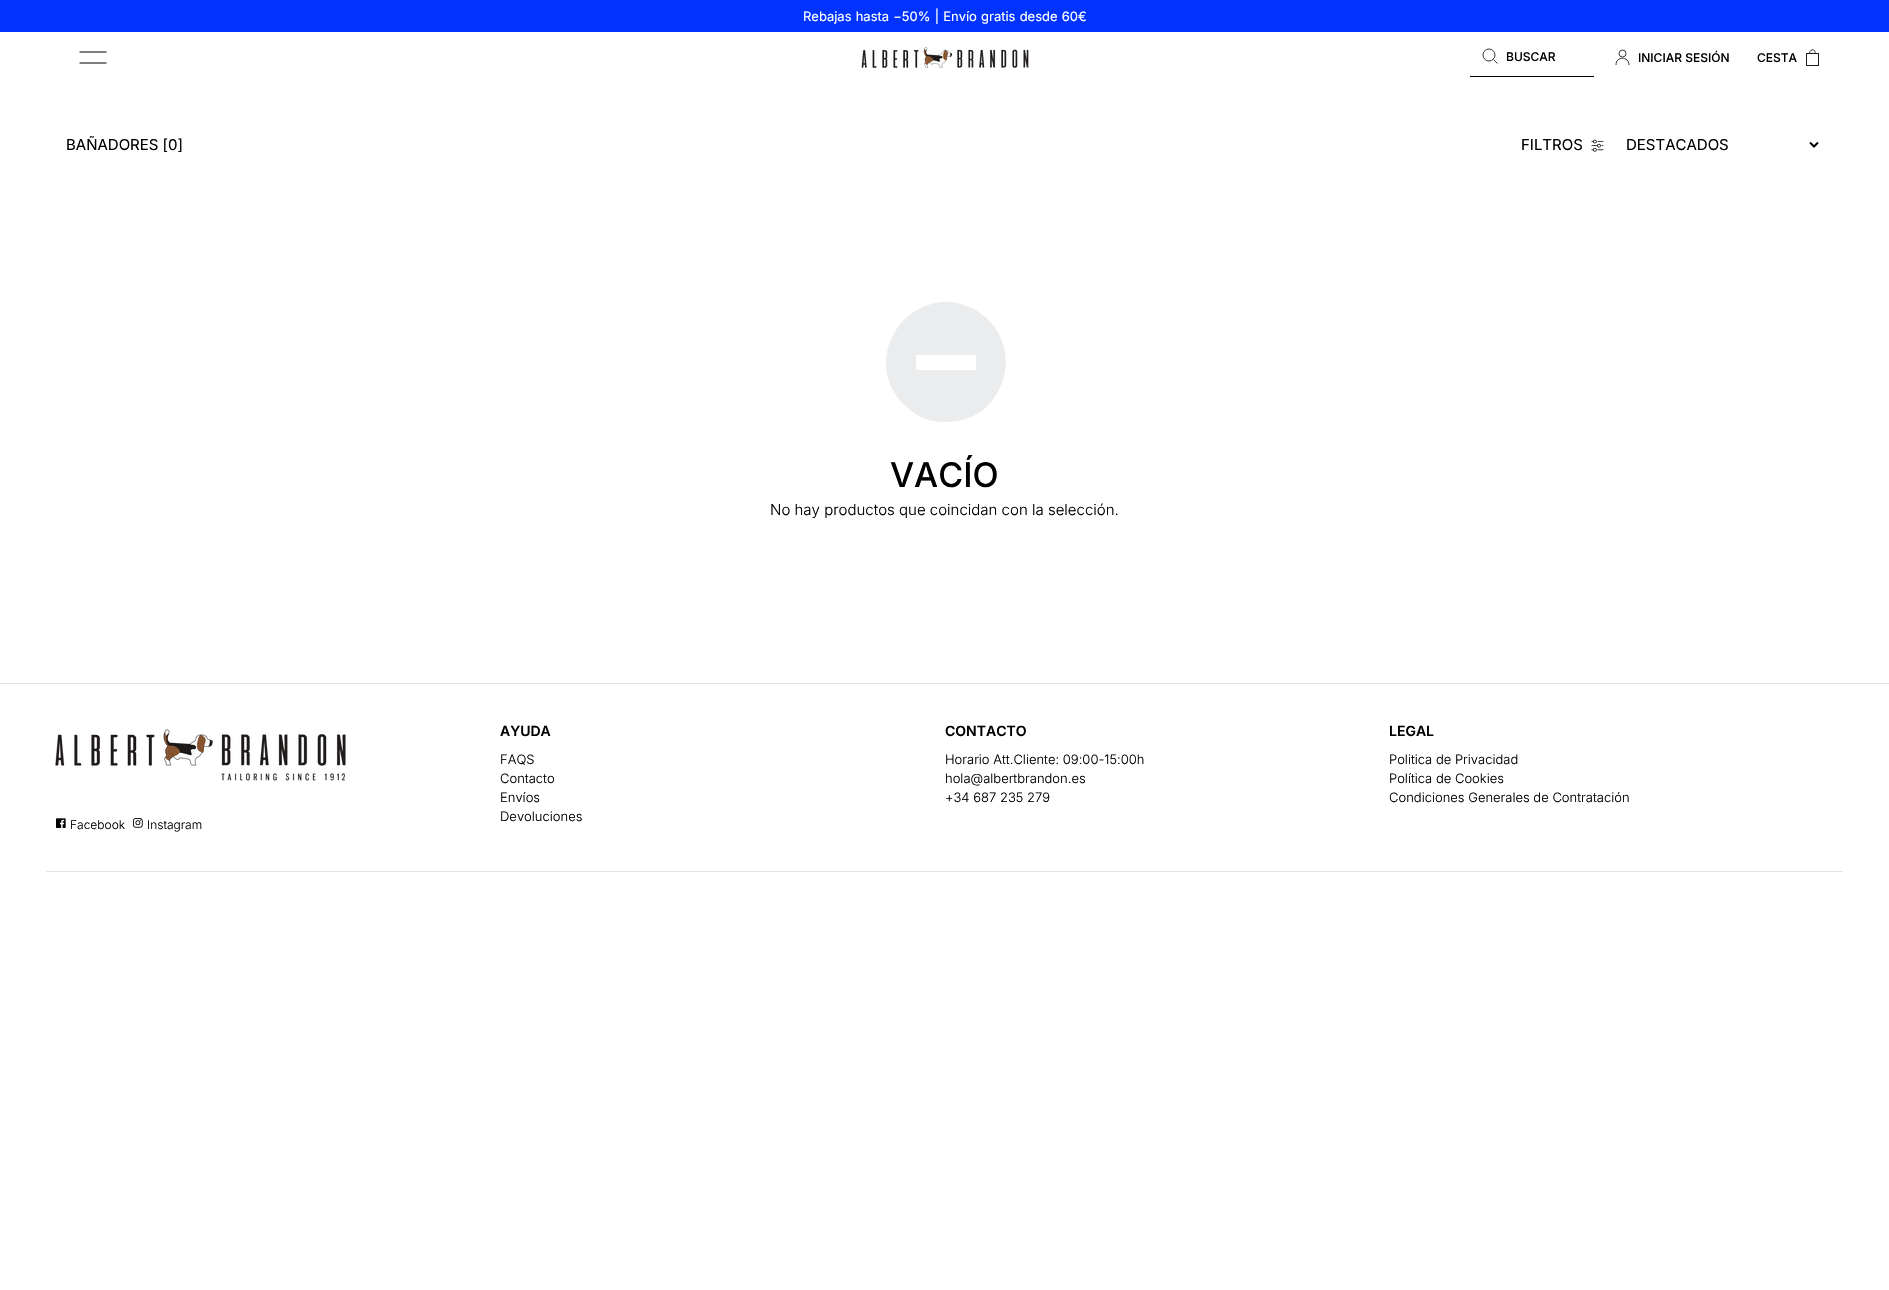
void draw(SkCanvas* canvas) {
    SkPaint paint;
    paint.setAntiAlias(true);
    auto spacedText = [&](const char* s, float x, float y, const SkFont& font, const SkPaint& ink, float letter, float word) {
        std::vector<SkGlyphID> glyphs(font.countText(s, strlen(s), SkTextEncoding::kUTF8));
        std::vector<float> xs(glyphs.size());
        font.textToGlyphs(s, strlen(s), SkTextEncoding::kUTF8, glyphs);
        font.getXPos(glyphs, xs, x);
        float extra = 0;
        for (size_t i = 0; i < glyphs.size(); i++) {
            xs[i] += extra;
            extra += letter + word * (glyphs[i] == font.unicharToGlyph(' '));
        }
        canvas->drawTextBlob(SkTextBlob::MakeFromPosHGlyphs(glyphs, xs, y, font), 0, 0, ink);
    };
    canvas->clear(0xFFFFFFFF);
    paint.setColor(0xFF0033FF);
    canvas->drawRect(SkRect::MakeXYWH(0, 0, 1889, 32), paint);
    SkFont font1(fontMgr->matchFamilyStyle("Inter", SkFontStyle::Normal()), 13);
    font1.setSubpixel(true);
    paint.setColor(0xFFFFFFFF);
    spacedText("Rebajas hasta −50% | Envío gratis desde 60€", 803, 21, font1, paint, 0, 0.5f);
    paint.setStyle(SkPaint::kStroke_Style);
    paint.setStrokeWidth(1.2f);
    paint.setColor(0xFF000000);
    canvas->drawPath(SkPathBuilder().moveTo(79.5f, 52).lineTo(106.5f, 52).moveTo(79.5f, 63).lineTo(106.5f, 63).detach(), paint);
    canvas->drawImageRect(SkImages::DeferredFromEncodedData(SkData::MakeFromFileName("img1.png")), SkRect::MakeXYWH(861, 47, 168, 21), SkSamplingOptions());
    paint.setStyle(SkPaint::kFill_Style);
    canvas->drawRect(SkRect::MakeXYWH(1470, 76, 124, 1), paint);
    paint.setStyle(SkPaint::kStroke_Style);
    paint.setStrokeWidth(0.9f);
    paint.setColor(0xFF1D1D1B);
    canvas->drawCircle(1489, 55, 6, paint);
    canvas->drawPath(SkPathBuilder().moveTo(1493.5f, 59.5f).lineTo(1497.5f, 63.5f).detach(), paint);
    SkFont font2(fontMgr->matchFamilyStyle("Inter", SkFontStyle(500, SkFontStyle::kNormal_Width, SkFontStyle::kUpright_Slant)), 12);
    font2.setSubpixel(true);
    paint.setStyle(SkPaint::kFill_Style);
    paint.setColor(0xFF000000);
    canvas->drawString("BUSCAR", 1506, 61, font2, paint);
    paint.setStyle(SkPaint::kStroke_Style);
    paint.setColor(0xFF1D1D1B);
    canvas->drawCircle(1622.5f, 53.5f, 3.5f, paint);
    canvas->drawPath(SkPathBuilder().moveTo(1616, 65).cubicTo(1616, 56, 1629, 56, 1629, 65).detach(), paint);
    paint.setStyle(SkPaint::kFill_Style);
    paint.setColor(0xFF000000);
    canvas->drawString("INICIAR SESIÓN", 1638, 62, font2, paint);
    canvas->drawString("CESTA", 1757, 62, font2, paint);
    paint.setStyle(SkPaint::kStroke_Style);
    paint.setStrokeWidth(1);
    paint.setColor(0xFF1D1D1B);
    canvas->drawRect(SkRect::MakeXYWH(1806.5f, 53.5f, 12, 12), paint);
    paint.setStrokeWidth(0.9f);
    canvas->drawPath(SkPathBuilder().moveTo(1809.5f, 53.5f).cubicTo(1809.5f, 48.5f, 1816, 48.5f, 1815, 53.5f).detach(), paint);
    SkFont font3(fontMgr->matchFamilyStyle("Inter", SkFontStyle::Normal()), 15);
    font3.setSubpixel(true);
    paint.setStyle(SkPaint::kFill_Style);
    paint.setColor(0xFF000000);
    canvas->drawString("BAÑADORES [0]", 66, 150, font3, paint);
    canvas->drawString("FILTROS", 1521, 150, font3, paint);
    canvas->drawImageRect(SkImages::DeferredFromEncodedData(SkData::MakeFromFileName("img2.png")), SkRect::MakeXYWH(1591, 139, 13, 13), SkSamplingOptions());
    paint.setStyle(SkPaint::kStroke_Style);
    paint.setStrokeWidth(2);
    canvas->drawPath(SkPathBuilder().moveTo(1810, 142.5f).lineTo(1814, 146.5f).lineTo(1818, 142.5f).detach(), paint);
    paint.setStyle(SkPaint::kFill_Style);
    canvas->drawString("DESTACADOS", 1626, 150, font3, paint);
    paint.setColor(0xFFEBECEE);
    canvas->drawPath(SkPathBuilder().moveTo(969, 307).cubicTo(1007, 323, 1018, 370, 991, 402).cubicTo(983, 412, 970, 419, 957, 421).cubicTo(945, 423, 933, 422, 923, 418).cubicTo(911, 412, 901, 404, 894, 392).cubicTo(872, 354, 899, 305, 943, 302).cubicTo(952, 302, 961, 303, 969, 307).close().moveTo(976, 355).lineTo(916, 355).lineTo(916, 370).lineTo(976, 370).close().detach(), paint);
    SkFont font4(fontMgr->matchFamilyStyle("Inter", SkFontStyle(500, SkFontStyle::kNormal_Width, SkFontStyle::kUpright_Slant)), 34);
    font4.setSubpixel(true);
    paint.setColor(0xFF000000);
    canvas->drawString("VACÍO", 890, 487, font4, paint);
    SkFont font5(fontMgr->matchFamilyStyle("Inter", SkFontStyle(300, SkFontStyle::kNormal_Width, SkFontStyle::kUpright_Slant)), 15);
    font5.setSubpixel(true);
    canvas->drawString("No hay productos que coincidan con la selección.", 770, 515, font5, paint);
    paint.setColor(0xFFE3E3E3);
    canvas->drawRect(SkRect::MakeXYWH(0, 683, 1889, 1), paint);
    SkFont font6(fontMgr->matchFamilyStyle("Inter", SkFontStyle(600, SkFontStyle::kNormal_Width, SkFontStyle::kUpright_Slant)), 14);
    font6.setSubpixel(true);
    paint.setColor(0xFF000000);
    canvas->drawString("AYUDA", 500, 736, font6, paint);
    SkFont font7(fontMgr->matchFamilyStyle("Inter", SkFontStyle(300, SkFontStyle::kNormal_Width, SkFontStyle::kUpright_Slant)), 13);
    font7.setSubpixel(true);
    canvas->drawString("FAQS", 500, 764, font7, paint);
    canvas->drawString("Contacto", 500, 783, font7, paint);
    canvas->drawString("Envíos", 500, 802, font7, paint);
    canvas->drawString("Devoluciones", 500, 821, font7, paint);
    canvas->drawString("CONTACTO", 945, 736, font6, paint);
    canvas->drawString("Horario Att.Cliente: 09:00-15:00h", 945, 764, font7, paint);
    canvas->drawString("hola@albertbrandon.es", 945, 783, font7, paint);
    canvas->drawString("+34 687 235 279", 945, 802, font7, paint);
    canvas->drawString("LEGAL", 1389, 736, font6, paint);
    canvas->drawString("Politica de Privacidad", 1389, 764, font7, paint);
    canvas->drawString("Política de Cookies", 1389, 783, font7, paint);
    canvas->drawString("Condiciones Generales de Contratación", 1389, 802, font7, paint);
    canvas->drawImageRect(SkImages::DeferredFromEncodedData(SkData::MakeFromFileName("img3.png")), SkRect::MakeXYWH(55, 729, 291, 52), SkSamplingOptions());
    canvas->drawImageRect(SkImages::DeferredFromEncodedData(SkData::MakeFromFileName("img4.png")), SkRect::MakeXYWH(56, 818, 10, 10), SkSamplingOptions());
    SkFont font8(fontMgr->matchFamilyStyle("Inter", SkFontStyle(300, SkFontStyle::kNormal_Width, SkFontStyle::kUpright_Slant)), 12);
    font8.setSubpixel(true);
    canvas->drawString("Facebook", 70, 829, font8, paint);
    canvas->drawImageRect(SkImages::DeferredFromEncodedData(SkData::MakeFromFileName("img5.png")), SkRect::MakeXYWH(133, 818, 10, 10), SkSamplingOptions());
    canvas->drawString("Instagram", 147, 829, font8, paint);
    paint.setColor(0xFFE3E3E3);
    canvas->drawRect(SkRect::MakeXYWH(46, 871, 1797, 1), paint);
}
